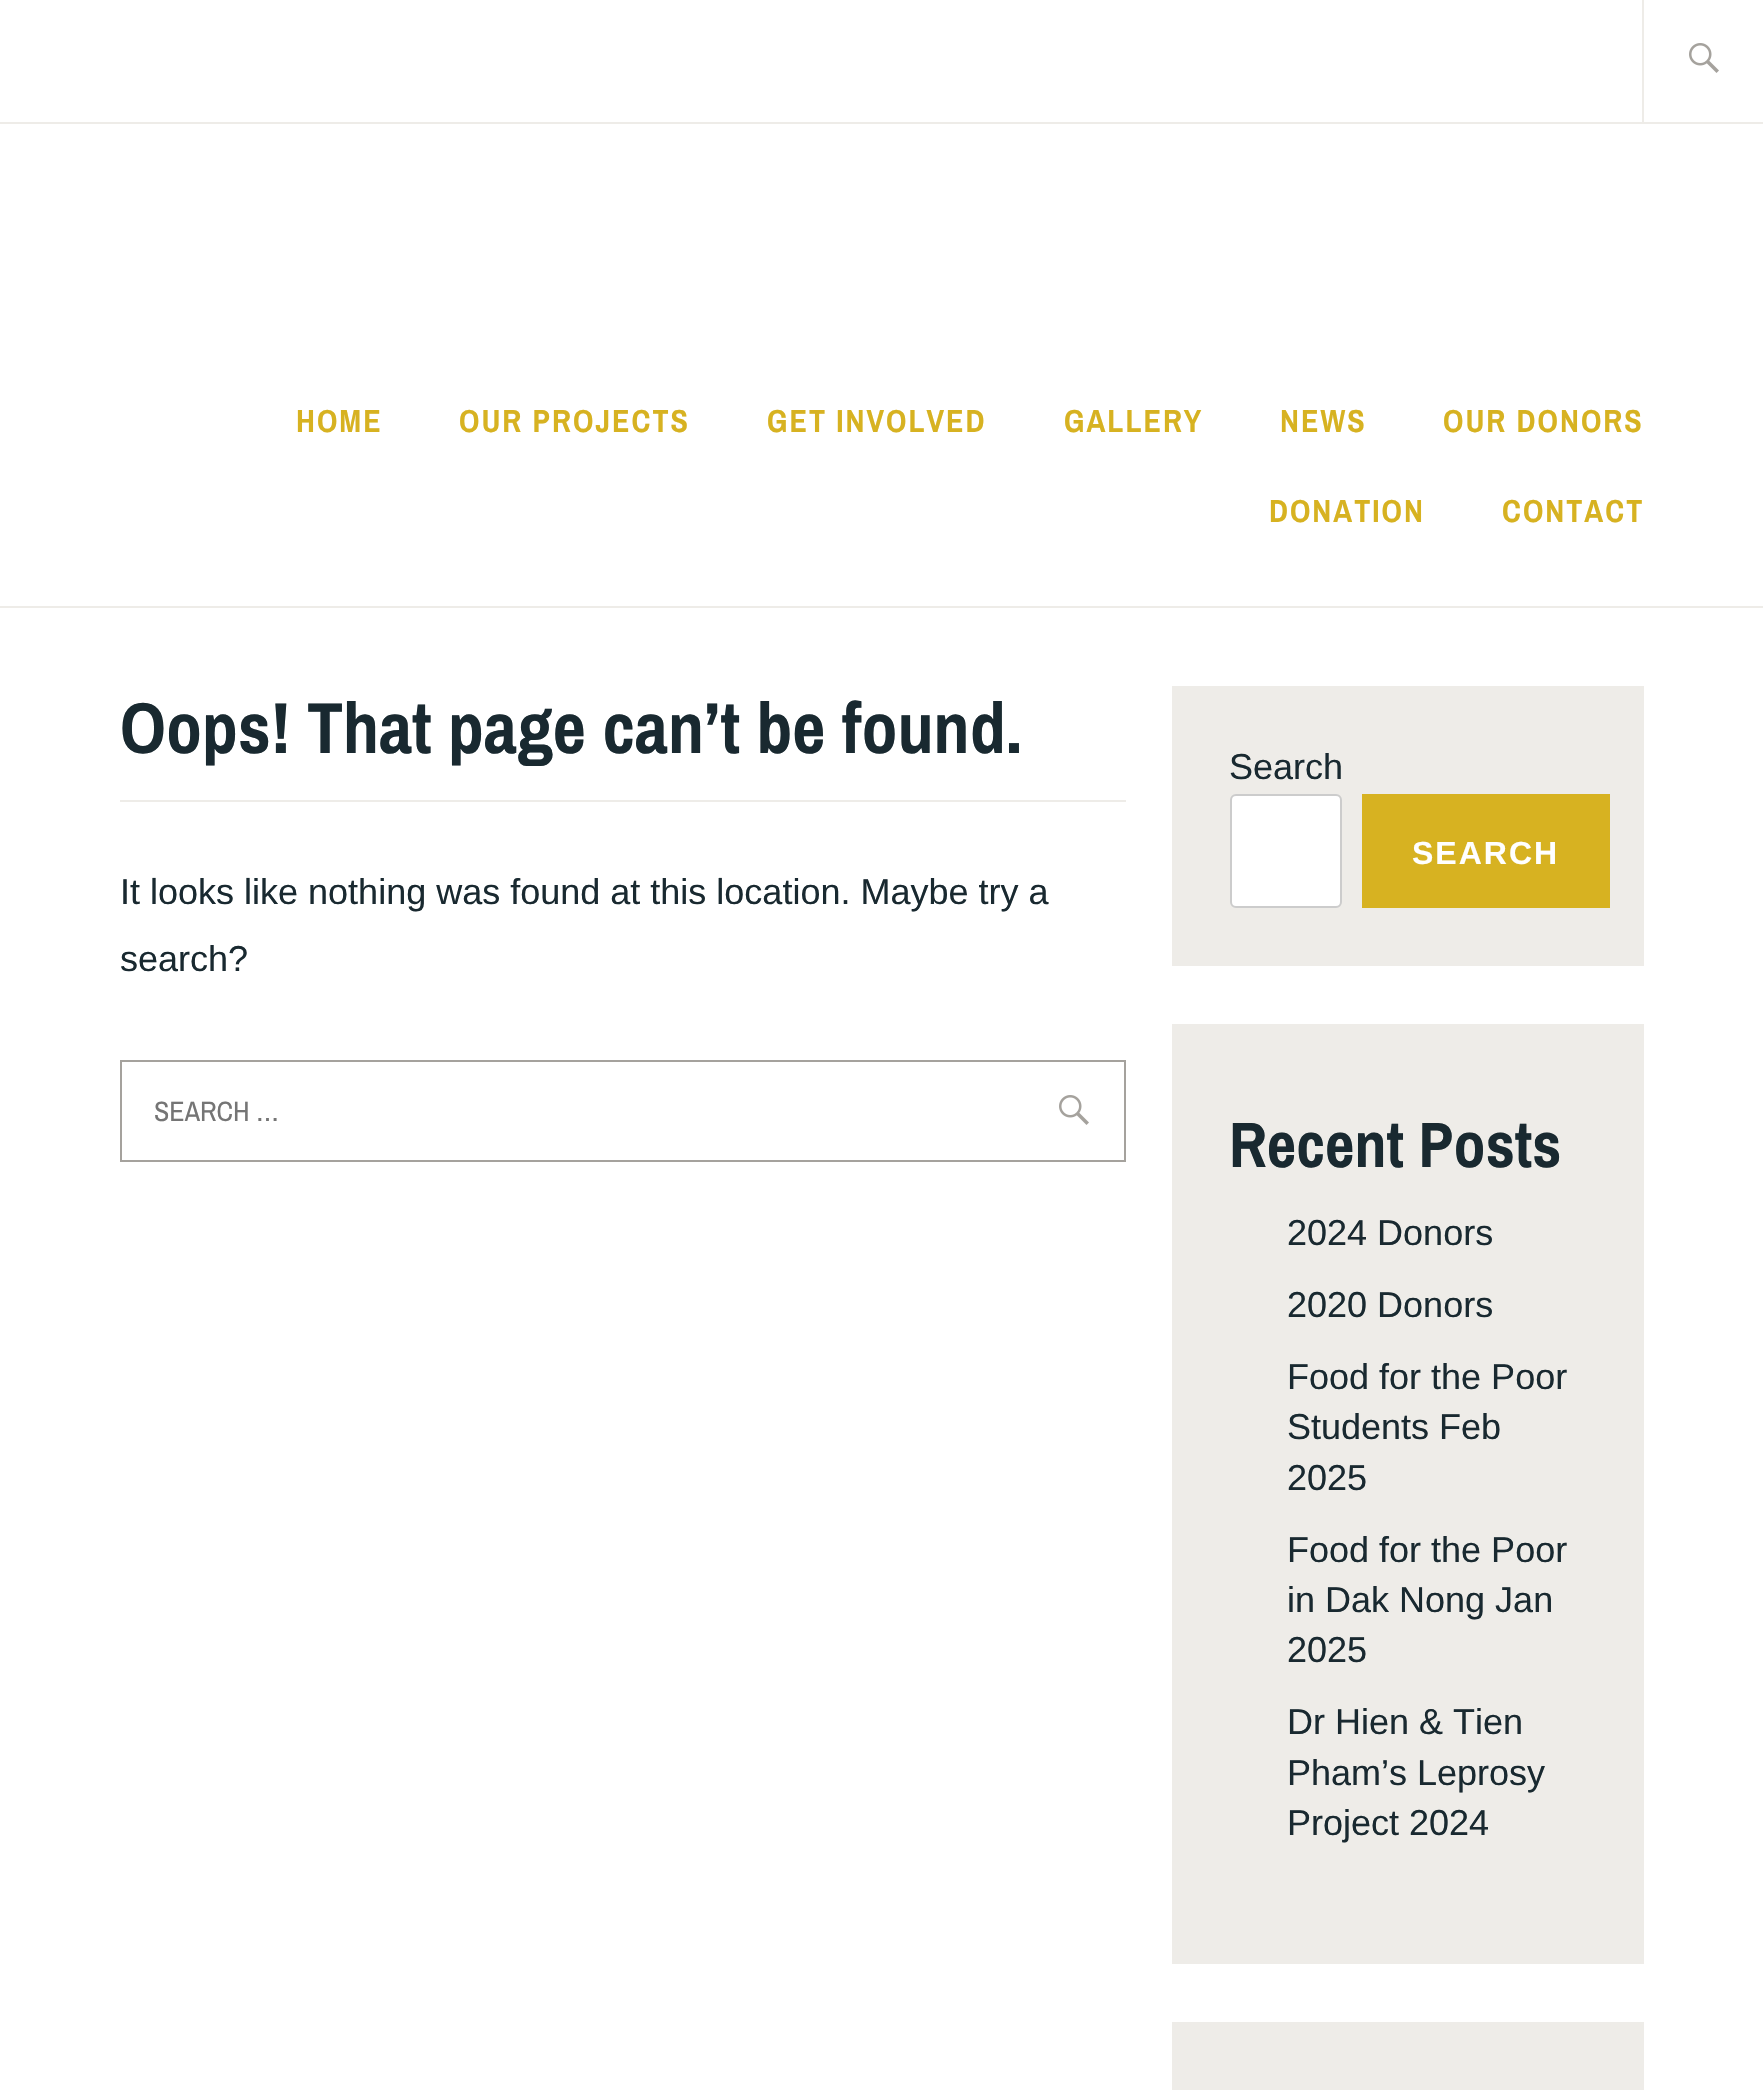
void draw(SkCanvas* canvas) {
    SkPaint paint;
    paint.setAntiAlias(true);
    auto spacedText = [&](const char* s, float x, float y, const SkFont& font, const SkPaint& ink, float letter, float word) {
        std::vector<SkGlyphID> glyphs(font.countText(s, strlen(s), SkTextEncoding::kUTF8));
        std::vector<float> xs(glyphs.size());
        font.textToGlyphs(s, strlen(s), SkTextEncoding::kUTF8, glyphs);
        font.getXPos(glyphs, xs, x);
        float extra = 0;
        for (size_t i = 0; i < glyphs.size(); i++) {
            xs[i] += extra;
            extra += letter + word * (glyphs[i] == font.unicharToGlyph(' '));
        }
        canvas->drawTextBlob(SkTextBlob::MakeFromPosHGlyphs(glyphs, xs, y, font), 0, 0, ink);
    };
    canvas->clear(0xFFFFFFFF);
    paint.setColor(0xFFEEECE8);
    canvas->drawRect(SkRect::MakeXYWH(0, 606, 1763, 2), paint);
    canvas->drawRect(SkRect::MakeXYWH(0, 122, 1763, 2), paint);
    canvas->drawRect(SkRect::MakeXYWH(1642, 0, 2, 122), paint);
    canvas->drawImageRect(SkImages::DeferredFromEncodedData(SkData::MakeFromFileName("img1.png")), SkRect::MakeXYWH(1689, 43, 30, 30), SkSamplingOptions());
    SkFont font1(fontMgr->matchFamilyStyle("Archivo Narrow", SkFontStyle::Bold()), 32);
    font1.setSubpixel(true);
    paint.setColor(0xFFD7B221);
    spacedText("HOME", 296, 432, font1, paint, 2, 0);
    spacedText("OUR PROJECTS", 459, 432, font1, paint, 2, 0);
    spacedText("GET INVOLVED", 767, 432, font1, paint, 2, 0);
    spacedText("GALLERY", 1064, 432, font1, paint, 2, 0);
    spacedText("NEWS", 1280, 432, font1, paint, 2, 0);
    spacedText("OUR DONORS", 1443, 432, font1, paint, 2, 0);
    spacedText("DONATION", 1269, 522, font1, paint, 2, 0);
    spacedText("CONTACT", 1502, 522, font1, paint, 2, 0);
    paint.setColor(0xFFEEECE8);
    canvas->drawRect(SkRect::MakeXYWH(120, 800, 1006, 2), paint);
    SkFont font2(fontMgr->matchFamilyStyle("Archivo Narrow", SkFontStyle::Bold()), 72);
    font2.setSubpixel(true);
    paint.setColor(0xFF192930);
    canvas->drawString("Oops! That page can’t be found.", 120, 753, font2, paint);
    SkFont font3(fontMgr->matchFamilyStyle("Liberation Sans", SkFontStyle::Normal()), 36);
    font3.setSubpixel(true);
    canvas->drawString("It looks like nothing was found at this location. Maybe try a", 120, 904, font3, paint);
    canvas->drawString("search?", 120, 971, font3, paint);
    paint.setStyle(SkPaint::kStroke_Style);
    paint.setStrokeWidth(2);
    paint.setColor(0xFFA5A29D);
    canvas->drawRect(SkRect::MakeXYWH(121, 1061, 1004, 100), paint);
    SkFont font4(fontMgr->matchFamilyStyle("Archivo Narrow", SkFontStyle::Normal()), 28);
    font4.setSubpixel(true);
    paint.setStyle(SkPaint::kFill_Style);
    paint.setColor(0xFF757575);
    canvas->drawString("SEARCH …", 154, 1121, font4, paint);
    canvas->drawImageRect(SkImages::DeferredFromEncodedData(SkData::MakeFromFileName("img1.png")), SkRect::MakeXYWH(1059, 1095, 30, 30), SkSamplingOptions());
    paint.setColor(0xFFEEECE8);
    canvas->drawRect(SkRect::MakeXYWH(1172, 686, 472, 280), paint);
    paint.setColor(0xFF192930);
    canvas->drawString("Search", 1229, 779, font3, paint);
    paint.setColor(0xFFFFFFFF);
    canvas->drawRoundRect(SkRect::MakeXYWH(1231, 795, 110, 112), 5, 5, paint);
    paint.setStyle(SkPaint::kStroke_Style);
    paint.setColor(0xFFCCCCCC);
    canvas->drawRoundRect(SkRect::MakeXYWH(1231, 795, 110, 112), 5, 5, paint);
    paint.setStyle(SkPaint::kFill_Style);
    paint.setColor(0xFFD7B221);
    canvas->drawRect(SkRect::MakeXYWH(1362, 794, 248, 114), paint);
    SkFont font5(fontMgr->matchFamilyStyle("Liberation Sans", SkFontStyle::Bold()), 32);
    font5.setSubpixel(true);
    paint.setColor(0xFFFFFFFF);
    spacedText("SEARCH", 1412, 864, font5, paint, 2, 0);
    paint.setColor(0xFFEEECE8);
    canvas->drawRect(SkRect::MakeXYWH(1172, 1024, 472, 940), paint);
    SkFont font6(fontMgr->matchFamilyStyle("Archivo Narrow", SkFontStyle::Bold()), 64);
    font6.setSubpixel(true);
    paint.setColor(0xFF192930);
    canvas->drawString("Recent Posts", 1229, 1167, font6, paint);
    canvas->drawString("2024 Donors", 1287, 1245, font3, paint);
    canvas->drawString("2020 Donors", 1287, 1317, font3, paint);
    canvas->drawString("Food for the Poor", 1287, 1389, font3, paint);
    canvas->drawString("Students Feb", 1287, 1439, font3, paint);
    canvas->drawString("2025", 1287, 1490, font3, paint);
    canvas->drawString("Food for the Poor", 1287, 1562, font3, paint);
    canvas->drawString("in Dak Nong Jan", 1287, 1612, font3, paint);
    canvas->drawString("2025", 1287, 1662, font3, paint);
    canvas->drawString("Dr Hien & Tien", 1287, 1734, font3, paint);
    canvas->drawString("Pham’s Leprosy", 1287, 1785, font3, paint);
    canvas->drawString("Project 2024", 1287, 1835, font3, paint);
    paint.setColor(0xFFEEECE8);
    canvas->drawRect(SkRect::MakeXYWH(1172, 2022, 472, 68), paint);
}
